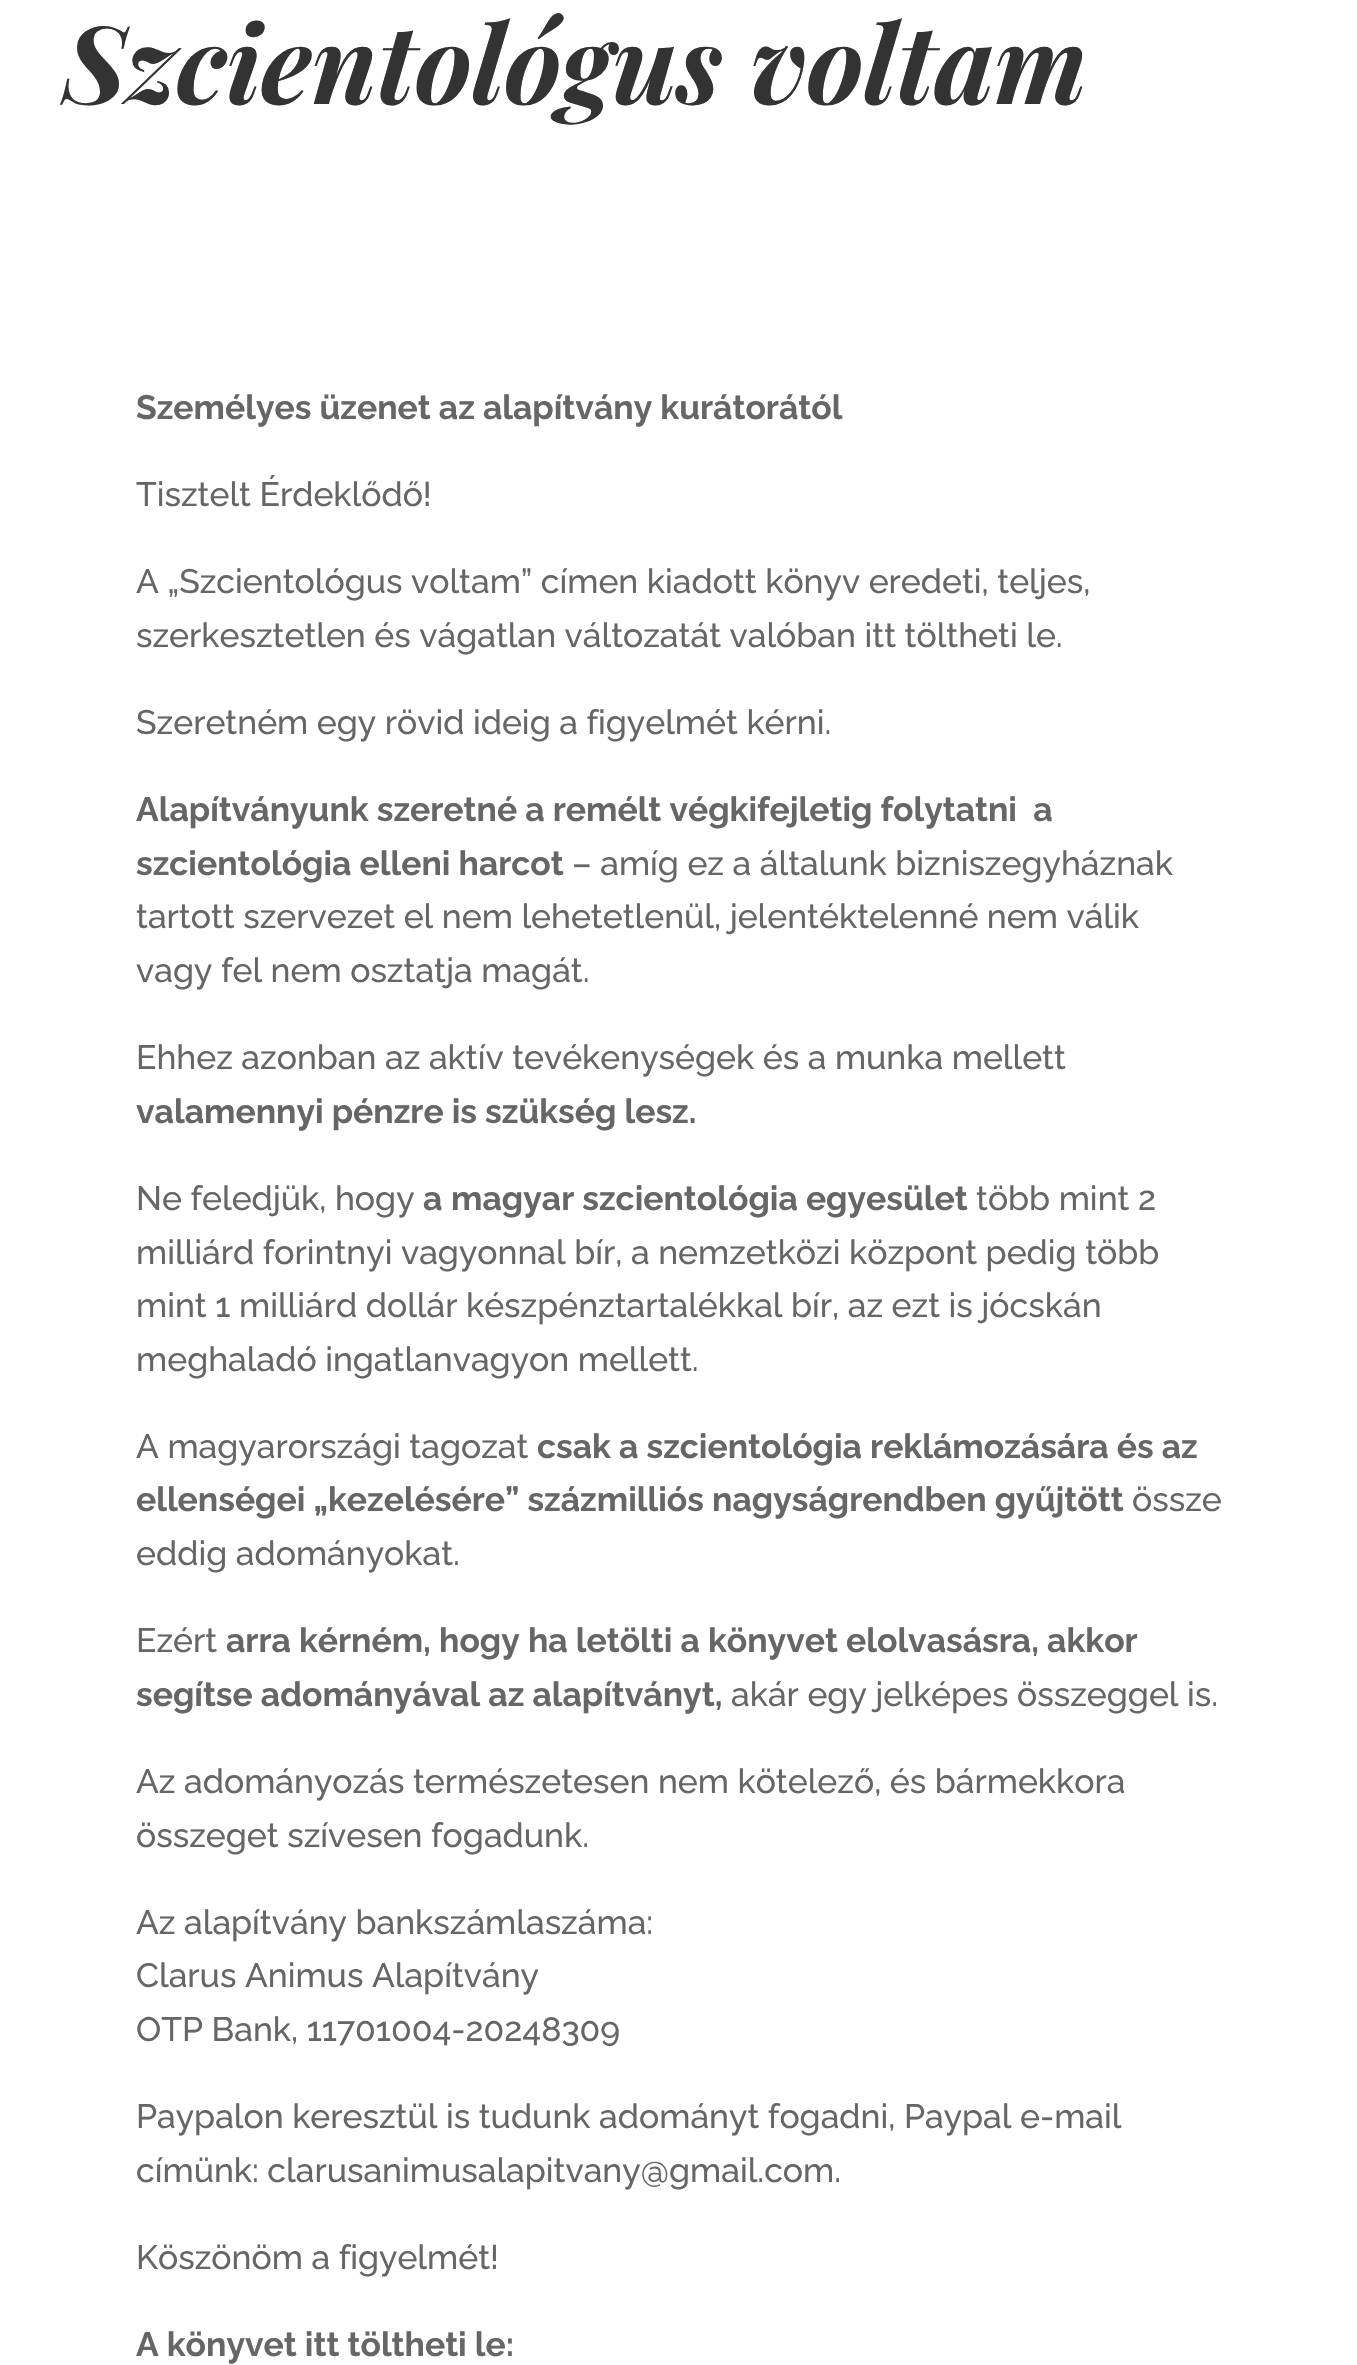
void draw(SkCanvas* canvas) {
    SkPaint paint;
    paint.setAntiAlias(true);
    canvas->clear(0xFFFFFFFF);
    SkFont font1(fontMgr->matchFamilyStyle("Playfair Display", SkFontStyle::BoldItalic()), 108);
    font1.setSubpixel(true);
    paint.setColor(0xFF333333);
    canvas->drawString("Szcientológus voltam", 63, 104, font1, paint);
    SkFont font2(fontMgr->matchFamilyStyle("Raleway", SkFontStyle::Bold()), 33.75f);
    font2.setSubpixel(true);
    paint.setColor(0xFF666666);
    canvas->drawString("Személyes üzenet az alapítvány kurátorától", 136, 419, font2, paint);
    SkFont font3(fontMgr->matchFamilyStyle("Raleway", SkFontStyle(500, SkFontStyle::kNormal_Width, SkFontStyle::kUpright_Slant)), 33.75f);
    font3.setSubpixel(true);
    canvas->drawString("Tisztelt Érdeklődő!", 136, 506, font3, paint);
    canvas->drawString("A „Szcientológus voltam” címen kiadott könyv eredeti, teljes,", 136, 593, font3, paint);
    canvas->drawString("szerkesztetlen és vágatlan változatát valóban itt töltheti le.", 136, 647, font3, paint);
    canvas->drawString("Szeretném egy rövid ideig a figyelmét kérni.", 136, 734, font3, paint);
    canvas->drawString("Alapítványunk szeretné a remélt végkifejletig folytatni  a", 136, 821, font2, paint);
    canvas->drawString("szcientológia elleni harcot", 136, 875, font2, paint);
    canvas->drawString("– amíg ez a általunk bizniszegyháznak", 572, 875, font3, paint);
    canvas->drawString("tartott szervezet el nem lehetetlenül, jelentéktelenné nem válik", 136, 928, font3, paint);
    canvas->drawString("vagy fel nem osztatja magát.", 136, 982, font3, paint);
    canvas->drawString("Ehhez azonban az aktív tevékenységek és a munka mellett", 136, 1069, font3, paint);
    canvas->drawString("valamennyi pénzre is szükség lesz.", 136, 1123, font2, paint);
    canvas->drawString("Ne feledjük, hogy", 136, 1210, font3, paint);
    canvas->drawString("a", 423, 1210, font2, paint);
    canvas->drawString("magyar szcientológia egyesület", 451, 1210, font2, paint);
    canvas->drawString("több mint 2", 976, 1210, font3, paint);
    canvas->drawString("milliárd forintnyi vagyonnal bír, a nemzetközi központ pedig több", 136, 1264, font3, paint);
    canvas->drawString("mint 1 milliárd dollár készpénztartalékkal bír, az ezt is jócskán", 136, 1317, font3, paint);
    canvas->drawString("meghaladó ingatlanvagyon mellett.", 136, 1371, font3, paint);
    canvas->drawString("A magyarországi tagozat", 136, 1458, font3, paint);
    canvas->drawString("csak a szcientológia reklámozására és az", 537, 1458, font2, paint);
    canvas->drawString("ellenségei „kezelésére” százmilliós nagyságrendben gyűjtött", 136, 1511, font2, paint);
    canvas->drawString("össze", 1132, 1511, font3, paint);
    canvas->drawString("eddig adományokat.", 136, 1565, font3, paint);
    canvas->drawString("Ezért", 136, 1652, font3, paint);
    canvas->drawString("arra kérném, hogy ha letölti a könyvet elolvasásra, akkor", 226, 1652, font2, paint);
    canvas->drawString("segítse adományával az alapítványt,", 136, 1706, font2, paint);
    canvas->drawString("akár egy jelképes összeggel is.", 731, 1706, font3, paint);
    canvas->drawString("Az adományozás természetesen nem kötelező, és bármekkora", 136, 1793, font3, paint);
    canvas->drawString("összeget szívesen fogadunk.", 136, 1847, font3, paint);
    canvas->drawString("Az alapítvány bankszámlaszáma:", 136, 1934, font3, paint);
    canvas->drawString("Clarus Animus Alapítvány", 136, 1987, font3, paint);
    canvas->drawString("OTP Bank, 11701004-20248309", 136, 2041, font3, paint);
    canvas->drawString("Paypalon keresztül is tudunk adományt fogadni, Paypal e-mail", 136, 2128, font3, paint);
    canvas->drawString("címünk: clarusanimusalapitvany@gmail.com.", 136, 2182, font3, paint);
    canvas->drawString("Köszönöm a figyelmét!", 136, 2269, font3, paint);
    canvas->drawString("A könyvet itt töltheti le:", 136, 2356, font2, paint);
}
